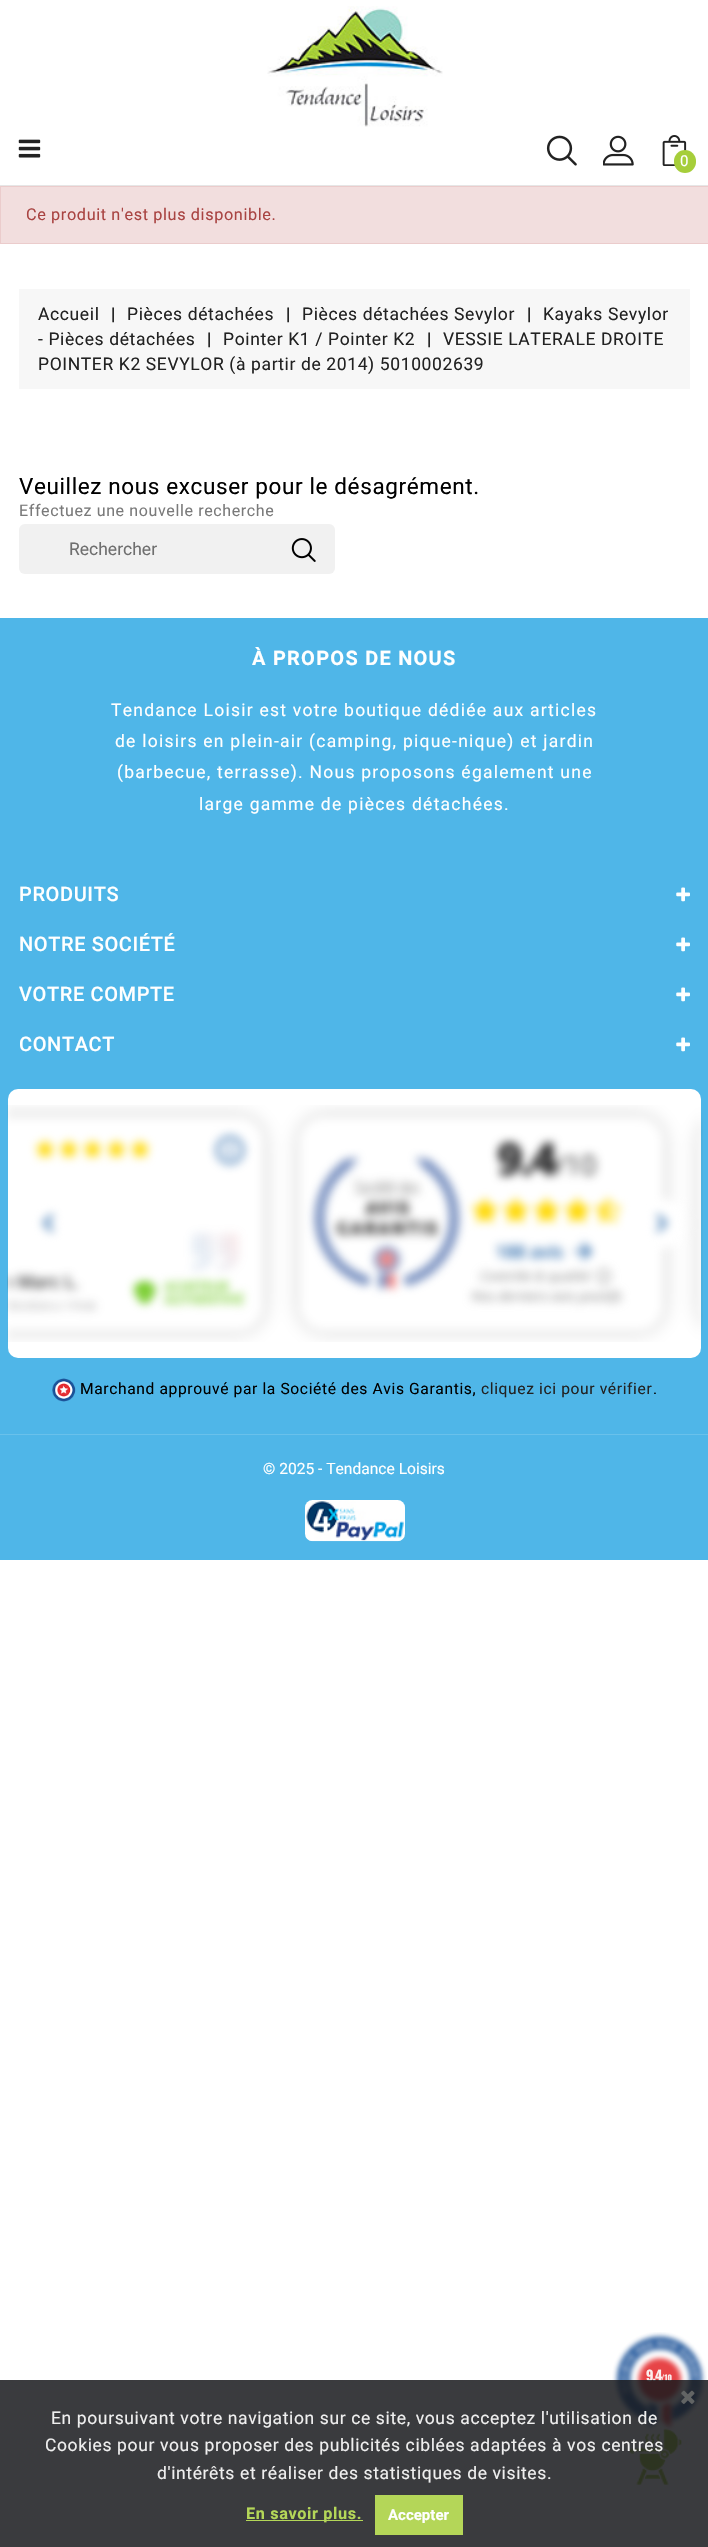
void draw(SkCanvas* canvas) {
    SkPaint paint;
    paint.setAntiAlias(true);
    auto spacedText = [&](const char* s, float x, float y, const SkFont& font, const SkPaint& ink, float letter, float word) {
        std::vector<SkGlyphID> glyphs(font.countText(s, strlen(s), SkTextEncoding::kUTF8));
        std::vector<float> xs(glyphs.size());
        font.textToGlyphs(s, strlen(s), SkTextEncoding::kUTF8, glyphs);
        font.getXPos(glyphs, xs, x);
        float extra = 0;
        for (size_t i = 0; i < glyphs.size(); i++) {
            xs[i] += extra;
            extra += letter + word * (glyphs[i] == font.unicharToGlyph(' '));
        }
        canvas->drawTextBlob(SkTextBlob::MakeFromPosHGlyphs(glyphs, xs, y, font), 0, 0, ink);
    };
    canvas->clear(0xFFFFFFFF);
    paint.setColor(0xFFE6E6E6);
    canvas->drawRect(SkRect::MakeXYWH(0, 185, 708, 1), paint);
    canvas->drawImageRect(SkImages::DeferredFromEncodedData(SkData::MakeFromFileName("img1.png")), SkRect::MakeXYWH(267, 6, 176, 121), SkSamplingOptions());
    canvas->drawImageRect(SkImages::DeferredFromEncodedData(SkData::MakeFromFileName("img2.png")), SkRect::MakeXYWH(18, 139, 23, 19), SkSamplingOptions());
    canvas->drawImageRect(SkImages::DeferredFromEncodedData(SkData::MakeFromFileName("img3.png")), SkRect::MakeXYWH(546, 135, 31, 31), SkSamplingOptions());
    canvas->drawImageRect(SkImages::DeferredFromEncodedData(SkData::MakeFromFileName("img4.png")), SkRect::MakeXYWH(603, 135, 31, 31), SkSamplingOptions());
    canvas->drawImageRect(SkImages::DeferredFromEncodedData(SkData::MakeFromFileName("img5.png")), SkRect::MakeXYWH(662, 135, 25, 31), SkSamplingOptions());
    paint.setColor(0xFFA6CE3A);
    canvas->drawRoundRect(SkRect::MakeXYWH(674, 150, 22, 23), 11, 11, paint);
    SkFont font1(fontMgr->matchFamilyStyle("Roboto", SkFontStyle::Normal()), 15);
    font1.setSubpixel(true);
    paint.setColor(0xFFFFFFFF);
    spacedText("0", 680, 166, font1, paint, 0.62f, 0);
    paint.setColor(0xFFF2DEDE);
    canvas->drawRect(SkRect::MakeXYWH(0.5f, 186.5f, 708, 57), paint);
    paint.setStyle(SkPaint::kStroke_Style);
    paint.setStrokeWidth(1);
    paint.setColor(0xFFEBCCCC);
    canvas->drawRect(SkRect::MakeXYWH(0.5f, 186.5f, 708, 57), paint);
    SkFont font2(fontMgr->matchFamilyStyle("Roboto", SkFontStyle::Normal()), 16.25f);
    font2.setSubpixel(true);
    paint.setStyle(SkPaint::kFill_Style);
    paint.setColor(0xFFA94442);
    spacedText("Ce produit n'est plus disponible.", 26, 220, font2, paint, 0.62f, 0);
    paint.setColor(0xFFF7F7F7);
    canvas->drawRect(SkRect::MakeXYWH(19, 289, 671, 100), paint);
    SkFont font3(fontMgr->matchFamilyStyle("Roboto", SkFontStyle::Normal()), 17.5f);
    font3.setSubpixel(true);
    paint.setColor(0xFF222222);
    spacedText("Accueil", 38, 320, font3, paint, 0.62f, 0);
    paint.setColor(0xFF000000);
    spacedText("|", 111, 320, font3, paint, 0.62f, 0);
    paint.setColor(0xFF222222);
    spacedText("Pièces détachées", 127, 320, font3, paint, 0.62f, 0);
    paint.setColor(0xFF000000);
    spacedText("|", 286, 320, font3, paint, 0.62f, 0);
    paint.setColor(0xFF222222);
    spacedText("Pièces détachées Sevylor", 302, 320, font3, paint, 0.62f, 0);
    paint.setColor(0xFF000000);
    spacedText("|", 527, 320, font3, paint, 0.62f, 0);
    paint.setColor(0xFF222222);
    spacedText("Kayaks Sevylor", 543, 320, font3, paint, 0.62f, 0);
    spacedText("- Pièces détachées", 38, 345, font3, paint, 0.62f, 0);
    paint.setColor(0xFF000000);
    spacedText("|", 207, 345, font3, paint, 0.62f, 0);
    paint.setColor(0xFF222222);
    spacedText("Pointer K1 / Pointer K2", 223, 345, font3, paint, 0.62f, 0);
    paint.setColor(0xFF000000);
    spacedText("|", 427, 345, font3, paint, 0.62f, 0);
    paint.setColor(0xFF222222);
    spacedText("VESSIE LATERALE DROITE", 443, 345, font3, paint, 0.62f, 0);
    spacedText("POINTER K2 SEVYLOR (à partir de 2014) 5010002639", 38, 370, font3, paint, 0.62f, 0);
    SkFont font4(fontMgr->matchFamilyStyle("Roboto", SkFontStyle::Normal()), 22.5f);
    font4.setSubpixel(true);
    paint.setColor(0xFF000000);
    spacedText("Veuillez nous excuser pour le désagrément.", 19, 494, font4, paint, 0.62f, 0);
    SkFont font5(fontMgr->matchFamilyStyle("Roboto", SkFontStyle::Normal()), 16);
    font5.setSubpixel(true);
    paint.setColor(0xFF7A7A7A);
    spacedText("Effectuez une nouvelle recherche", 19, 516, font5, paint, 0.62f, 0);
    paint.setColor(0xFFF1F1F1);
    canvas->drawRoundRect(SkRect::MakeXYWH(19, 524, 316, 50), 6, 6, paint);
    paint.setColor(0xFF6F6F6F);
    canvas->drawString("Rechercher", 69, 555, font3, paint);
    canvas->drawImageRect(SkImages::DeferredFromEncodedData(SkData::MakeFromFileName("img6.png")), SkRect::MakeXYWH(291, 538, 25, 24), SkSamplingOptions());
    paint.setColor(0xFF4FB6E8);
    canvas->drawRect(SkRect::MakeXYWH(0, 618, 708, 942), paint);
    SkFont font6(fontMgr->matchFamilyStyle("Roboto", SkFontStyle::Bold()), 20);
    font6.setSubpixel(true);
    paint.setColor(0xFFFFFFFF);
    spacedText("À PROPOS DE NOUS", 252, 665, font6, paint, 1.25f, 0);
    spacedText("Tendance Loisir est votre boutique dédiée aux articles", 111, 716, font3, paint, 1.25f, 0);
    spacedText("de loisirs en plein-air (camping, pique-nique) et jardin", 115, 747, font3, paint, 1.25f, 0);
    spacedText("(barbecue, terrasse). Nous proposons également une", 117, 778, font3, paint, 1.25f, 0);
    spacedText("large gamme de pièces détachées.", 199, 810, font3, paint, 1.25f, 0);
    SkFont font7(fontMgr->matchFamilyStyle("Roboto", SkFontStyle(500, SkFontStyle::kNormal_Width, SkFontStyle::kUpright_Slant)), 20);
    font7.setSubpixel(true);
    spacedText("PRODUITS", 19, 901, font7, paint, 0.62f, 0);
    canvas->drawImageRect(SkImages::DeferredFromEncodedData(SkData::MakeFromFileName("img7.png")), SkRect::MakeXYWH(676, 887, 14, 15), SkSamplingOptions());
    spacedText("NOTRE SOCIÉTÉ", 19, 951, font7, paint, 0.62f, 0);
    canvas->drawImageRect(SkImages::DeferredFromEncodedData(SkData::MakeFromFileName("img7.png")), SkRect::MakeXYWH(676, 937, 14, 15), SkSamplingOptions());
    spacedText("VOTRE COMPTE", 19, 1001, font7, paint, 0.62f, 0);
    canvas->drawImageRect(SkImages::DeferredFromEncodedData(SkData::MakeFromFileName("img7.png")), SkRect::MakeXYWH(676, 987, 14, 15), SkSamplingOptions());
    spacedText("CONTACT", 19, 1051, font7, paint, 0.62f, 0);
    canvas->drawImageRect(SkImages::DeferredFromEncodedData(SkData::MakeFromFileName("img7.png")), SkRect::MakeXYWH(676, 1037, 14, 15), SkSamplingOptions());
    canvas->drawRoundRect(SkRect::MakeXYWH(8, 1089, 693, 269), 10, 10, paint);
    canvas->drawImageRect(SkImages::DeferredFromEncodedData(SkData::MakeFromFileName("img8.png")), SkRect::MakeXYWH(7, 1105, 696, 237), SkSamplingOptions());
    canvas->drawImageRect(SkImages::DeferredFromEncodedData(SkData::MakeFromFileName("img9.png")), SkRect::MakeXYWH(52, 1378, 24, 24), SkSamplingOptions());
    SkFont font8(fontMgr->matchFamilyStyle("Roboto", SkFontStyle::Normal()), 15.6f);
    font8.setSubpixel(true);
    paint.setColor(0xFF000000);
    spacedText("Marchand approuvé par la Société des Avis Garantis,", 80, 1394, font8, paint, 0.62f, 0);
    paint.setColor(0xFF222222);
    spacedText("cliquez ici pour vérifier", 481, 1394, font8, paint, 0.62f, 0);
    paint.setColor(0xFF000000);
    spacedText(".", 653, 1394, font8, paint, 0.62f, 0);
    paint.setColor(0xFF69C1EB);
    canvas->drawRect(SkRect::MakeXYWH(0, 1434, 708, 1), paint);
    paint.setColor(0xFFFFFFFF);
    canvas->drawString("© 2025 - Tendance Loisirs", 263, 1474, font8, paint);
    canvas->drawImageRect(SkImages::DeferredFromEncodedData(SkData::MakeFromFileName("img10.png")), SkRect::MakeXYWH(305, 1500, 100, 42), SkSamplingOptions());
    canvas->drawImageRect(SkImages::DeferredFromEncodedData(SkData::MakeFromFileName("img11.png")), SkRect::MakeXYWH(629, 2428, 53, 57), SkSamplingOptions());
    canvas->drawImageRect(SkImages::DeferredFromEncodedData(SkData::MakeFromFileName("img12.png")), SkRect::MakeXYWH(612, 2332, 95, 100), SkSamplingOptions());
    SkFont font9(fontMgr->matchFamilyStyle("Oswald", SkFontStyle::Bold()), 14);
    font9.setSubpixel(true);
    paint.setColor(0xFFFDEEEE);
    spacedText("9.4", 646, 2381, font9, paint, -1, 0);
    SkFont font10(fontMgr->matchFamilyStyle("Oswald", SkFontStyle::Bold()), 8);
    font10.setSubpixel(true);
    canvas->drawString("/10", 661, 2381, font10, paint);
    paint.setColor(0xD917191C);
    canvas->drawRect(SkRect::MakeXYWH(0, 2380, 708, 167), paint);
    canvas->drawImageRect(SkImages::DeferredFromEncodedData(SkData::MakeFromFileName("img13.png")), SkRect::MakeXYWH(681, 2390, 14, 14), SkSamplingOptions());
    paint.setColor(0xFFEFEFEF);
    spacedText("En poursuivant votre navigation sur ce site, vous acceptez l'utilisation de", 51, 2424, font3, paint, 0.62f, 0);
    spacedText("Cookies pour vous proposer des publicités ciblées adaptées à vos centres", 45, 2451, font3, paint, 0.62f, 0);
    spacedText("d'intérêts et réaliser des statistiques de visites.", 157, 2479, font3, paint, 0.62f, 0);
    paint.setColor(0xFFB4D658);
    canvas->drawRect(SkRect::MakeXYWH(246, 2520, 117, 1), paint);
    SkFont font11(fontMgr->matchFamilyStyle("Roboto", SkFontStyle::Bold()), 16.25f);
    font11.setSubpixel(true);
    spacedText("En savoir plus.", 246, 2519, font11, paint, 0.62f, 0);
    canvas->drawRect(SkRect::MakeXYWH(375, 2495, 88, 40), paint);
    SkFont font12(fontMgr->matchFamilyStyle("Roboto", SkFontStyle::Bold()), 15);
    font12.setSubpixel(true);
    paint.setColor(0xFFFFFFFF);
    canvas->drawString("Accepter", 388, 2520, font12, paint);
}
